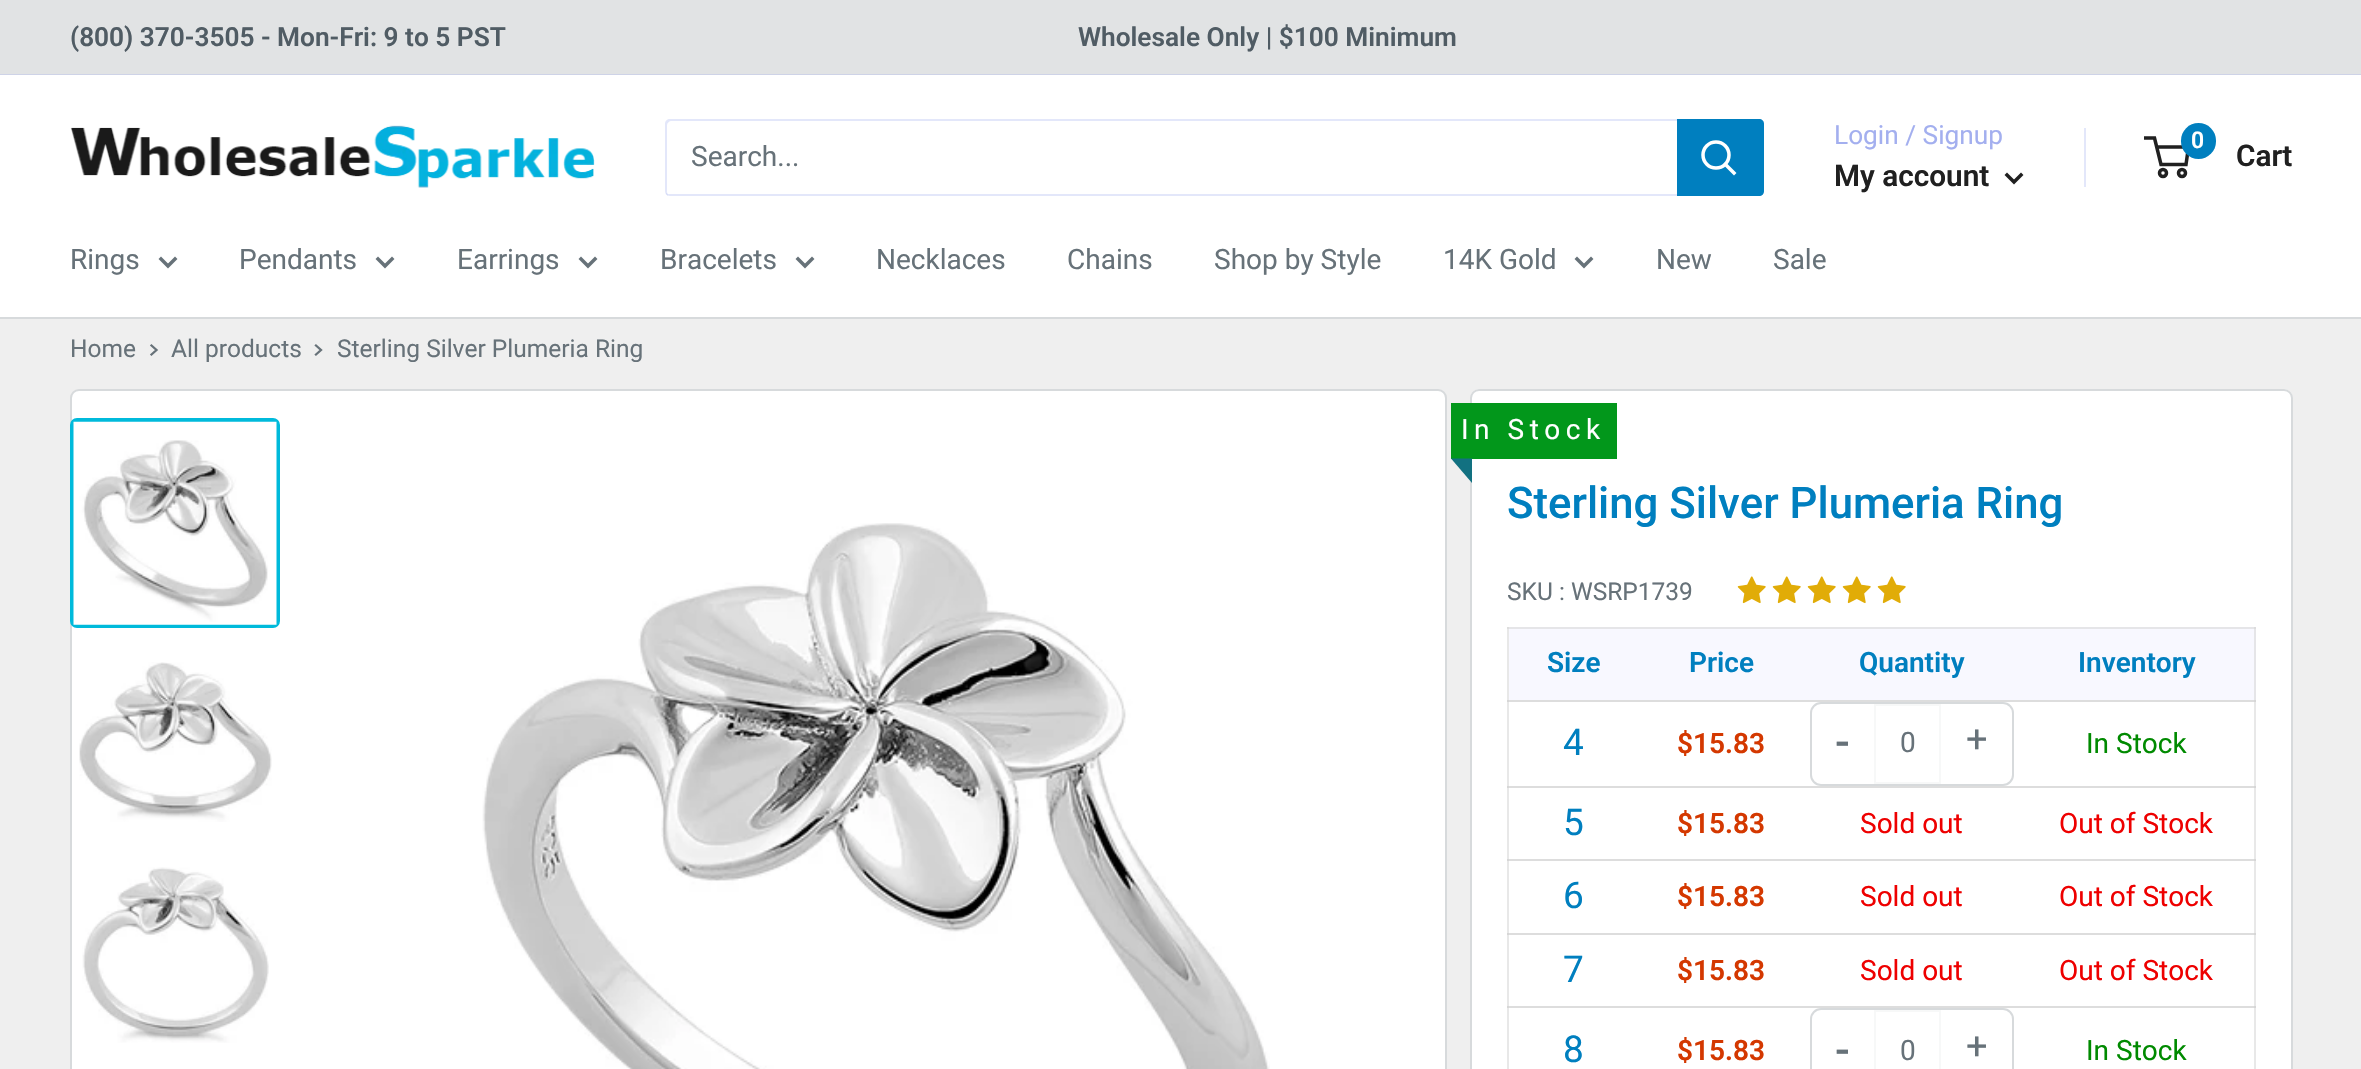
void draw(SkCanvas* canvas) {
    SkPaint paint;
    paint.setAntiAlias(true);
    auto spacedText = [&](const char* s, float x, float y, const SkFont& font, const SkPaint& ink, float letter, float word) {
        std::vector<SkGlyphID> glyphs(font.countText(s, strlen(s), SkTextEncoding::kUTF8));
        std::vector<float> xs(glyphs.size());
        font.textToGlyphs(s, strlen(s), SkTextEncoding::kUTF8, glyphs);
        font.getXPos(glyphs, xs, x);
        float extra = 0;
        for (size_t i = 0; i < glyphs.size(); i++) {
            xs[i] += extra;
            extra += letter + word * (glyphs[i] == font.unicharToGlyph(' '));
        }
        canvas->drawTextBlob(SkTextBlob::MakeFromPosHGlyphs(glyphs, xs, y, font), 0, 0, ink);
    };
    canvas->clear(0xFFEFEFEF);
    paint.setColor(0xFFE1E3E4);
    canvas->drawRect(SkRect::MakeXYWH(0, 0, 2361, 74), paint);
    paint.setColor(0xFFCED3E7);
    canvas->drawRect(SkRect::MakeXYWH(0, 74, 2361, 1), paint);
    SkFont font1(fontMgr->matchFamilyStyle("Roboto", SkFontStyle(600, SkFontStyle::kNormal_Width, SkFontStyle::kUpright_Slant)), 26.25f);
    font1.setSubpixel(true);
    paint.setColor(0xFF505C64);
    canvas->drawString("(800) 370-3505 - Mon-Fri: 9 to 5 PST", 70, 46, font1, paint);
    canvas->drawString("Wholesale Only | $100 Minimum", 1078, 46, font1, paint);
    paint.setColor(0xFFFFFFFF);
    canvas->drawRect(SkRect::MakeXYWH(0, 75, 2361, 242), paint);
    canvas->drawImageRect(SkImages::DeferredFromEncodedData(SkData::MakeFromFileName("img1.png")), SkRect::MakeXYWH(70, 125, 525, 63), SkSamplingOptions());
    paint.setColor(0xFFE3E7FA);
    canvas->drawPath(SkPathBuilder().moveTo(666, 193).cubicTo(666, 195, 668, 196, 670, 196).lineTo(1759, 196).cubicTo(1762, 196, 1764, 194, 1764, 191).lineTo(1764, 124).cubicTo(1764, 122, 1763, 120, 1761, 120).lineTo(1762, 122).lineTo(1762, 189).cubicTo(1762, 192, 1760, 194, 1757, 194).lineTo(668, 194).close().detach(), paint);
    paint.setColor(0x4DA3AFEF);
    canvas->drawPath(SkPathBuilder().moveTo(672, 121).lineTo(1760, 121).lineTo(1764, 122).cubicTo(1763, 120, 1761, 119, 1759, 119).lineTo(670, 119).cubicTo(667, 119, 665, 121, 665, 124).lineTo(665, 191).cubicTo(665, 193, 666, 195, 668, 196).lineTo(667, 192).lineTo(667, 126).cubicTo(667, 123, 669, 121, 672, 121).close().detach(), paint);
    SkFont font2(fontMgr->matchFamilyStyle("Roboto", SkFontStyle::Normal()), 28);
    font2.setSubpixel(true);
    paint.setColor(0xFF677279);
    canvas->drawString("Search...", 691, 166, font2, paint);
    paint.setColor(0xFF007FBF);
    canvas->drawPath(SkPathBuilder().moveTo(1677, 119).lineTo(1759, 119).cubicTo(1762, 119, 1764, 121, 1764, 124).lineTo(1764, 191).cubicTo(1764, 194, 1762, 196, 1759, 196).lineTo(1677, 196).close().detach(), paint);
    paint.setStyle(SkPaint::kStroke_Style);
    paint.setStrokeWidth(3.5f);
    paint.setStrokeCap(SkPaint::kSquare_Cap);
    paint.setColor(0xFFFFFFFF);
    canvas->drawPath(SkPathBuilder().moveTo(1734, 173).lineTo(1725.5f, 164.5f).detach(), paint);
    paint.setStrokeCap(SkPaint::kButt_Cap);
    canvas->drawCircle(1716, 155, 13, paint);
    SkFont font3(fontMgr->matchFamilyStyle("Roboto", SkFontStyle::Normal()), 26.25f);
    font3.setSubpixel(true);
    paint.setStyle(SkPaint::kFill_Style);
    paint.setColor(0xFFA3AFEF);
    canvas->drawString("Login / Signup", 1834, 144, font3, paint);
    paint.setColor(0xFFE3E7FA);
    canvas->drawRect(SkRect::MakeXYWH(2084, 128, 2, 59), paint);
    SkFont font4(fontMgr->matchFamilyStyle("Roboto", SkFontStyle(600, SkFontStyle::kNormal_Width, SkFontStyle::kUpright_Slant)), 29.75f);
    font4.setSubpixel(true);
    paint.setColor(0xFF202020);
    canvas->drawString("My account", 1834, 186, font4, paint);
    paint.setStyle(SkPaint::kStroke_Style);
    paint.setStrokeCap(SkPaint::kSquare_Cap);
    canvas->drawPath(SkPathBuilder().moveTo(2021, 175).lineTo(2014, 182).lineTo(2007, 175).detach(), paint);
    paint.setStrokeCap(SkPaint::kButt_Cap);
    canvas->drawCircle(2163, 173, 3.5f, paint);
    canvas->drawCircle(2182, 173, 3.5f, paint);
    canvas->drawPath(SkPathBuilder().moveTo(2156.5f, 147).lineTo(2188.5f, 147).lineTo(2186, 164.5f).lineTo(2161, 164.5f).lineTo(2154.5f, 138).lineTo(2144, 138).detach(), paint);
    paint.setStyle(SkPaint::kFill_Style);
    paint.setColor(0xFF007FBF);
    canvas->drawRoundRect(SkRect::MakeXYWH(2181, 123, 35, 36), 17.5f, 17.5f, paint);
    SkFont font5(fontMgr->matchFamilyStyle("Roboto", SkFontStyle(600, SkFontStyle::kNormal_Width, SkFontStyle::kUpright_Slant)), 23);
    font5.setSubpixel(true);
    paint.setColor(0xFFFFFFFF);
    canvas->drawString("0", 2191, 148, font5, paint);
    paint.setColor(0xFF202020);
    canvas->drawString("Cart", 2236, 166, font4, paint);
    paint.setColor(0xFFD7DADC);
    canvas->drawRect(SkRect::MakeXYWH(0, 317, 2361, 2), paint);
    paint.setColor(0xFF677279);
    canvas->drawString("Rings", 70, 269, font2, paint);
    paint.setStyle(SkPaint::kStroke_Style);
    paint.setStrokeCap(SkPaint::kSquare_Cap);
    canvas->drawPath(SkPathBuilder().moveTo(175, 259).lineTo(168, 266).lineTo(161, 259).detach(), paint);
    paint.setStyle(SkPaint::kFill_Style);
    canvas->drawString("Pendants", 239, 269, font2, paint);
    paint.setStyle(SkPaint::kStroke_Style);
    canvas->drawPath(SkPathBuilder().moveTo(392, 259).lineTo(385, 266).lineTo(378, 259).detach(), paint);
    paint.setStyle(SkPaint::kFill_Style);
    canvas->drawString("Earrings", 457, 269, font2, paint);
    paint.setStyle(SkPaint::kStroke_Style);
    canvas->drawPath(SkPathBuilder().moveTo(595, 259).lineTo(588, 266).lineTo(581, 259).detach(), paint);
    paint.setStyle(SkPaint::kFill_Style);
    canvas->drawString("Bracelets", 660, 269, font2, paint);
    paint.setStyle(SkPaint::kStroke_Style);
    canvas->drawPath(SkPathBuilder().moveTo(812, 259).lineTo(805, 266).lineTo(798, 259).detach(), paint);
    paint.setStyle(SkPaint::kFill_Style);
    canvas->drawString("Necklaces", 876, 269, font2, paint);
    canvas->drawString("Chains", 1067, 269, font2, paint);
    canvas->drawString("Shop by Style", 1214, 269, font2, paint);
    canvas->drawString("14K Gold", 1443, 269, font2, paint);
    paint.setStyle(SkPaint::kStroke_Style);
    canvas->drawPath(SkPathBuilder().moveTo(1591, 259).lineTo(1584, 266).lineTo(1577, 259).detach(), paint);
    paint.setStyle(SkPaint::kFill_Style);
    canvas->drawString("New", 1656, 269, font2, paint);
    canvas->drawString("Sale", 1773, 269, font2, paint);
    SkFont font6(fontMgr->matchFamilyStyle("Roboto", SkFontStyle::Normal()), 24.5f);
    font6.setSubpixel(true);
    canvas->drawString("Home", 70, 357, font6, paint);
    paint.setStyle(SkPaint::kStroke_Style);
    paint.setStrokeWidth(2.3f);
    canvas->drawPath(SkPathBuilder().moveTo(151.5f, 345.5f).lineTo(156.5f, 350).lineTo(151.5f, 354.5f).detach(), paint);
    paint.setStyle(SkPaint::kFill_Style);
    canvas->drawString("All products", 171, 357, font6, paint);
    paint.setStyle(SkPaint::kStroke_Style);
    canvas->drawPath(SkPathBuilder().moveTo(316, 345.5f).lineTo(321, 350).lineTo(316, 354.5f).detach(), paint);
    paint.setStyle(SkPaint::kFill_Style);
    canvas->drawString("Sterling Silver Plumeria Ring", 337, 357, font6, paint);
    paint.setColor(0xFFFFFFFF);
    canvas->drawRoundRect(SkRect::MakeXYWH(71, 390, 1375, 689), 8, 8, paint);
    paint.setStyle(SkPaint::kStroke_Style);
    paint.setStrokeWidth(2);
    paint.setStrokeCap(SkPaint::kButt_Cap);
    paint.setColor(0xFFD7DADC);
    canvas->drawRoundRect(SkRect::MakeXYWH(71, 390, 1375, 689), 8, 8, paint);
    paint.setStrokeWidth(4);
    paint.setColor(0xFF00BADB);
    canvas->drawRoundRect(SkRect::MakeXYWH(72, 420, 206, 206), 5, 5, paint);
    canvas->drawImageRect(SkImages::DeferredFromEncodedData(SkData::MakeFromFileName("img2.png")), SkRect::MakeXYWH(73, 421, 204, 204), SkSamplingOptions());
    canvas->drawImageRect(SkImages::DeferredFromEncodedData(SkData::MakeFromFileName("img3.png")), SkRect::MakeXYWH(79, 662, 193, 160), SkSamplingOptions());
    canvas->drawImageRect(SkImages::DeferredFromEncodedData(SkData::MakeFromFileName("img4.png")), SkRect::MakeXYWH(82, 867, 187, 176), SkSamplingOptions());
    canvas->drawImageRect(SkImages::DeferredFromEncodedData(SkData::MakeFromFileName("img5.png")), SkRect::MakeXYWH(482, 523, 788, 546), SkSamplingOptions());
    paint.setStyle(SkPaint::kFill_Style);
    paint.setColor(0xFFFFFFFF);
    canvas->drawRoundRect(SkRect::MakeXYWH(1470, 389, 823, 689), 9, 9, paint);
    paint.setColor(0xFFE8E8E8);
    canvas->drawRect(SkRect::MakeXYWH(1507, 627, 2, 442), paint);
    paint.setColor(0xFFDDDDDD);
    canvas->drawRect(SkRect::MakeXYWH(1507, 627, 2, 2), paint);
    paint.setColor(0xFFE8E8E8);
    canvas->drawRect(SkRect::MakeXYWH(2254, 700, 2, 369), paint);
    paint.setStyle(SkPaint::kStroke_Style);
    paint.setStrokeWidth(2);
    paint.setColor(0xFFD7DADC);
    canvas->drawRoundRect(SkRect::MakeXYWH(1471, 390, 821, 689), 8, 8, paint);
    paint.setStyle(SkPaint::kFill_Style);
    paint.setColor(0xFF02971B);
    canvas->drawRect(SkRect::MakeXYWH(1451, 403, 166, 56), paint);
    paint.setColor(0xFFFFFFFF);
    spacedText("In Stock", 1461, 439, font2, paint, 5.5f, 0);
    paint.setColor(0xFF127181);
    canvas->drawPath(SkPathBuilder().moveTo(1451, 458.5f).lineTo(1472, 458.5f).lineTo(1472, 483).close().detach(), paint);
    SkFont font7(fontMgr->matchFamilyStyle("Roboto", SkFontStyle(500, SkFontStyle::kNormal_Width, SkFontStyle::kUpright_Slant)), 43.75f);
    font7.setSubpixel(true);
    paint.setColor(0xFF007FBF);
    canvas->drawString("Sterling Silver Plumeria Ring", 1507, 518, font7, paint);
    paint.setColor(0xFF677279);
    canvas->drawString("SKU : WSRP1739", 1507, 600, font6, paint);
    canvas->drawImageRect(SkImages::DeferredFromEncodedData(SkData::MakeFromFileName("img6.png")), SkRect::MakeXYWH(1737, 576, 29, 28), SkSamplingOptions());
    canvas->drawImageRect(SkImages::DeferredFromEncodedData(SkData::MakeFromFileName("img6.png")), SkRect::MakeXYWH(1772, 576, 29, 28), SkSamplingOptions());
    canvas->drawImageRect(SkImages::DeferredFromEncodedData(SkData::MakeFromFileName("img6.png")), SkRect::MakeXYWH(1807, 576, 29, 28), SkSamplingOptions());
    canvas->drawImageRect(SkImages::DeferredFromEncodedData(SkData::MakeFromFileName("img6.png")), SkRect::MakeXYWH(1842, 576, 29, 28), SkSamplingOptions());
    canvas->drawImageRect(SkImages::DeferredFromEncodedData(SkData::MakeFromFileName("img6.png")), SkRect::MakeXYWH(1877, 576, 29, 28), SkSamplingOptions());
    paint.setColor(0xFFF8F8FF);
    canvas->drawRect(SkRect::MakeXYWH(1509, 629, 745, 71), paint);
    paint.setColor(0xFFE5E5E8);
    canvas->drawRect(SkRect::MakeXYWH(2254, 627, 2, 73), paint);
    canvas->drawRect(SkRect::MakeXYWH(1509, 627, 747, 2), paint);
    paint.setColor(0xFFDCDCDD);
    canvas->drawRect(SkRect::MakeXYWH(2254, 627, 2, 2), paint);
    SkFont font8(fontMgr->matchFamilyStyle("Roboto", SkFontStyle(600, SkFontStyle::kNormal_Width, SkFontStyle::kUpright_Slant)), 28);
    font8.setSubpixel(true);
    paint.setColor(0xFF007FBF);
    canvas->drawString("Size", 1547, 672, font8, paint);
    canvas->drawString("Price", 1689, 672, font8, paint);
    canvas->drawString("Quantity", 1859, 672, font8, paint);
    canvas->drawString("Inventory", 2078, 672, font8, paint);
    paint.setColor(0xFFDDDDDD);
    canvas->drawRect(SkRect::MakeXYWH(1507, 700, 749, 2), paint);
    paint.setColor(0xFFD6D6D6);
    canvas->drawRect(SkRect::MakeXYWH(1507, 700, 2, 2), paint);
    canvas->drawRect(SkRect::MakeXYWH(2254, 700, 2, 2), paint);
    SkFont font9(fontMgr->matchFamilyStyle("Roboto", SkFontStyle::Normal()), 37);
    font9.setSubpixel(true);
    paint.setColor(0xFF007FBF);
    canvas->drawString("4", 1563, 755, font9, paint);
    paint.setColor(0xFFD43800);
    canvas->drawString("$15.83", 1677, 753, font8, paint);
    paint.setStyle(SkPaint::kStroke_Style);
    paint.setColor(0xFFD7DADC);
    canvas->drawRoundRect(SkRect::MakeXYWH(1811, 703, 202, 82), 10, 10, paint);
    paint.setStyle(SkPaint::kFill_Style);
    paint.setColor(0xFF677279);
    canvas->drawString("-", 1835, 757, font7, paint);
    paint.setStyle(SkPaint::kStroke_Style);
    paint.setColor(0xFFF7F8F8);
    canvas->drawRect(SkRect::MakeXYWH(1875, 705, 65, 78), paint);
    paint.setStyle(SkPaint::kFill_Style);
    paint.setColor(0xFF677279);
    canvas->drawString("0", 1900, 752, font2, paint);
    SkFont font10(fontMgr->matchFamilyStyle("Roboto", SkFontStyle::Normal()), 38);
    font10.setSubpixel(true);
    canvas->drawString("+", 1966, 752, font10, paint);
    paint.setColor(0xFF008A00);
    canvas->drawString("In Stock", 2086, 753, font2, paint);
    paint.setColor(0xFFDDDDDD);
    canvas->drawRect(SkRect::MakeXYWH(1507, 786, 749, 2), paint);
    paint.setColor(0xFFD6D6D6);
    canvas->drawRect(SkRect::MakeXYWH(1507, 786, 2, 2), paint);
    canvas->drawRect(SkRect::MakeXYWH(2254, 786, 2, 2), paint);
    paint.setColor(0xFF007FBF);
    canvas->drawString("5", 1563, 835, font9, paint);
    paint.setColor(0xFFD43800);
    canvas->drawString("$15.83", 1677, 833, font8, paint);
    paint.setColor(0xFFEE0000);
    canvas->drawString("Sold out", 1860, 833, font2, paint);
    canvas->drawString("Out of Stock", 2059, 833, font2, paint);
    paint.setColor(0xFFDDDDDD);
    canvas->drawRect(SkRect::MakeXYWH(1507, 859, 749, 2), paint);
    paint.setColor(0xFFD6D6D6);
    canvas->drawRect(SkRect::MakeXYWH(1507, 859, 2, 2), paint);
    canvas->drawRect(SkRect::MakeXYWH(2254, 859, 2, 2), paint);
    paint.setColor(0xFF007FBF);
    canvas->drawString("6", 1563, 908, font9, paint);
    paint.setColor(0xFFD43800);
    canvas->drawString("$15.83", 1677, 906, font8, paint);
    paint.setColor(0xFFEE0000);
    canvas->drawString("Sold out", 1860, 906, font2, paint);
    canvas->drawString("Out of Stock", 2059, 906, font2, paint);
    paint.setColor(0xFFDDDDDD);
    canvas->drawRect(SkRect::MakeXYWH(1507, 933, 749, 2), paint);
    paint.setColor(0xFFD6D6D6);
    canvas->drawRect(SkRect::MakeXYWH(1507, 933, 2, 2), paint);
    canvas->drawRect(SkRect::MakeXYWH(2254, 933, 2, 2), paint);
    paint.setColor(0xFF007FBF);
    canvas->drawString("7", 1563, 982, font9, paint);
    paint.setColor(0xFFD43800);
    canvas->drawString("$15.83", 1677, 980, font8, paint);
    paint.setColor(0xFFEE0000);
    canvas->drawString("Sold out", 1860, 980, font2, paint);
    canvas->drawString("Out of Stock", 2059, 980, font2, paint);
    paint.setColor(0xFFDDDDDD);
    canvas->drawRect(SkRect::MakeXYWH(1507, 1006, 749, 2), paint);
    paint.setColor(0xFFD6D6D6);
    canvas->drawRect(SkRect::MakeXYWH(1507, 1006, 2, 2), paint);
    canvas->drawRect(SkRect::MakeXYWH(2254, 1006, 2, 2), paint);
    paint.setColor(0xFF007FBF);
    canvas->drawString("8", 1563, 1062, font9, paint);
    paint.setColor(0xFFD43800);
    canvas->drawString("$15.83", 1677, 1060, font8, paint);
    paint.setStyle(SkPaint::kStroke_Style);
    paint.setColor(0xFFD7DADC);
    canvas->drawRoundRect(SkRect::MakeXYWH(1811, 1009, 202, 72), 10, 10, paint);
    paint.setStyle(SkPaint::kFill_Style);
    paint.setColor(0xFF677279);
    canvas->drawString("-", 1835, 1065, font7, paint);
    paint.setStyle(SkPaint::kStroke_Style);
    paint.setColor(0xFFF7F8F8);
    canvas->drawRect(SkRect::MakeXYWH(1875, 1011, 65, 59), paint);
    paint.setStyle(SkPaint::kFill_Style);
    paint.setColor(0xFF677279);
    canvas->drawString("0", 1900, 1060, font2, paint);
    canvas->drawString("+", 1966, 1059, font10, paint);
    paint.setColor(0xFF008A00);
    canvas->drawString("In Stock", 2086, 1060, font2, paint);
}
